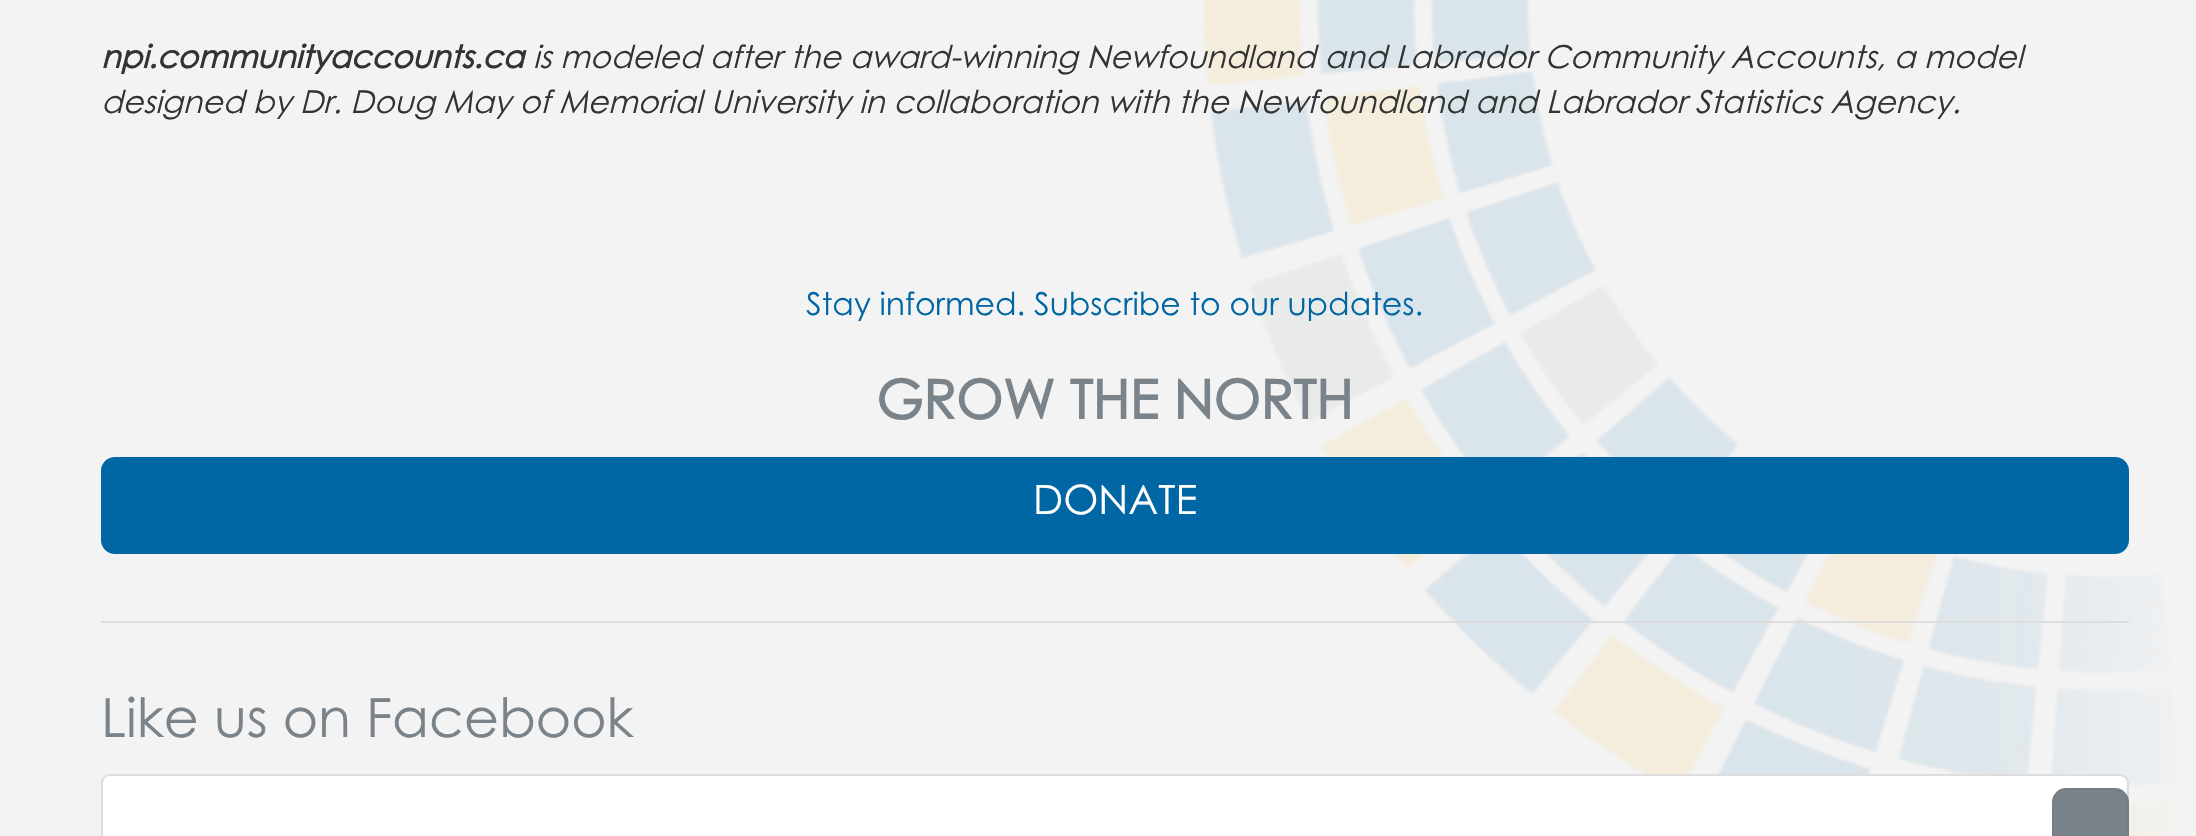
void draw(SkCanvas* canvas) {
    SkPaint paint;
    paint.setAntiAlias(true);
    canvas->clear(0xFFF3F3F3);
    canvas->drawImageRect(SkImages::DeferredFromEncodedData(SkData::MakeFromFileName("img1.png")), SkRect::MakeXYWH(1203, 0, 972, 836), SkSamplingOptions());
    SkFont font1(fontMgr->matchFamilyStyle("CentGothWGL", SkFontStyle::BoldItalic()), 31.5f);
    font1.setSubpixel(true);
    paint.setColor(0xFF333333);
    canvas->drawString("npi.communityaccounts.ca", 101, 68, font1, paint);
    SkFont font2(fontMgr->matchFamilyStyle("CentGothWGL", SkFontStyle::Italic()), 31.5f);
    font2.setSubpixel(true);
    canvas->drawString("is modeled after the award-winning Newfoundland and Labrador Community Accounts, a model", 533, 68, font2, paint);
    canvas->drawString("designed by Dr. Doug May of Memorial University in collaboration with the Newfoundland and Labrador Statistics Agency.", 101, 113, font2, paint);
    SkFont font3(fontMgr->matchFamilyStyle("CentGothWGL", SkFontStyle::Normal()), 31.5f);
    font3.setSubpixel(true);
    paint.setColor(0xFF0066A4);
    canvas->drawString("Stay informed. Subscribe to our updates.", 806, 315, font3, paint);
    SkFont font4(fontMgr->matchFamilyStyle("CentGothWGL", SkFontStyle::Bold()), 54);
    font4.setSubpixel(true);
    paint.setColor(0xFF7A8389);
    canvas->drawString("GROW THE NORTH", 876, 419, font4, paint);
    paint.setColor(0xFF0066A4);
    canvas->drawRoundRect(SkRect::MakeXYWH(101, 457, 2028, 97), 14, 14, paint);
    SkFont font5(fontMgr->matchFamilyStyle("CentGothWGL", SkFontStyle::Normal()), 40.5f);
    font5.setSubpixel(true);
    paint.setColor(0xFFFFFFFF);
    canvas->drawString("DONATE", 1033, 514, font5, paint);
    paint.setColor(0xFFDDDDDD);
    canvas->drawRect(SkRect::MakeXYWH(101, 621, 2028, 2), paint);
    SkFont font6(fontMgr->matchFamilyStyle("CentGothWGL", SkFontStyle::Normal()), 54);
    font6.setSubpixel(true);
    paint.setColor(0xFF7A8389);
    canvas->drawString("Like us on Facebook", 101, 737, font6, paint);
    paint.setColor(0xFFFFFFFF);
    canvas->drawRoundRect(SkRect::MakeXYWH(102, 775, 2026, 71), 8, 8, paint);
    paint.setStyle(SkPaint::kStroke_Style);
    paint.setStrokeWidth(2);
    paint.setColor(0xFFDDDDDD);
    canvas->drawRoundRect(SkRect::MakeXYWH(102, 775, 2026, 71), 8, 8, paint);
    paint.setStyle(SkPaint::kFill_Style);
    paint.setColor(0xFF7A8389);
    canvas->drawPath(SkPathBuilder().moveTo(2066, 789).lineTo(2115, 789).cubicTo(2122, 789, 2128, 795, 2128, 802).lineTo(2128, 836).lineTo(2053, 836).lineTo(2053, 802).cubicTo(2053, 795, 2059, 789, 2066, 789).close().detach(), paint);
    paint.setStyle(SkPaint::kStroke_Style);
    paint.setColor(0xFF757E84);
    canvas->drawPath(SkPathBuilder().moveTo(2066, 789).lineTo(2115, 789).cubicTo(2122, 789, 2128, 795, 2128, 802).lineTo(2128, 836).lineTo(2053, 836).lineTo(2053, 802).cubicTo(2053, 795, 2059, 789, 2066, 789).close().detach(), paint);
}
